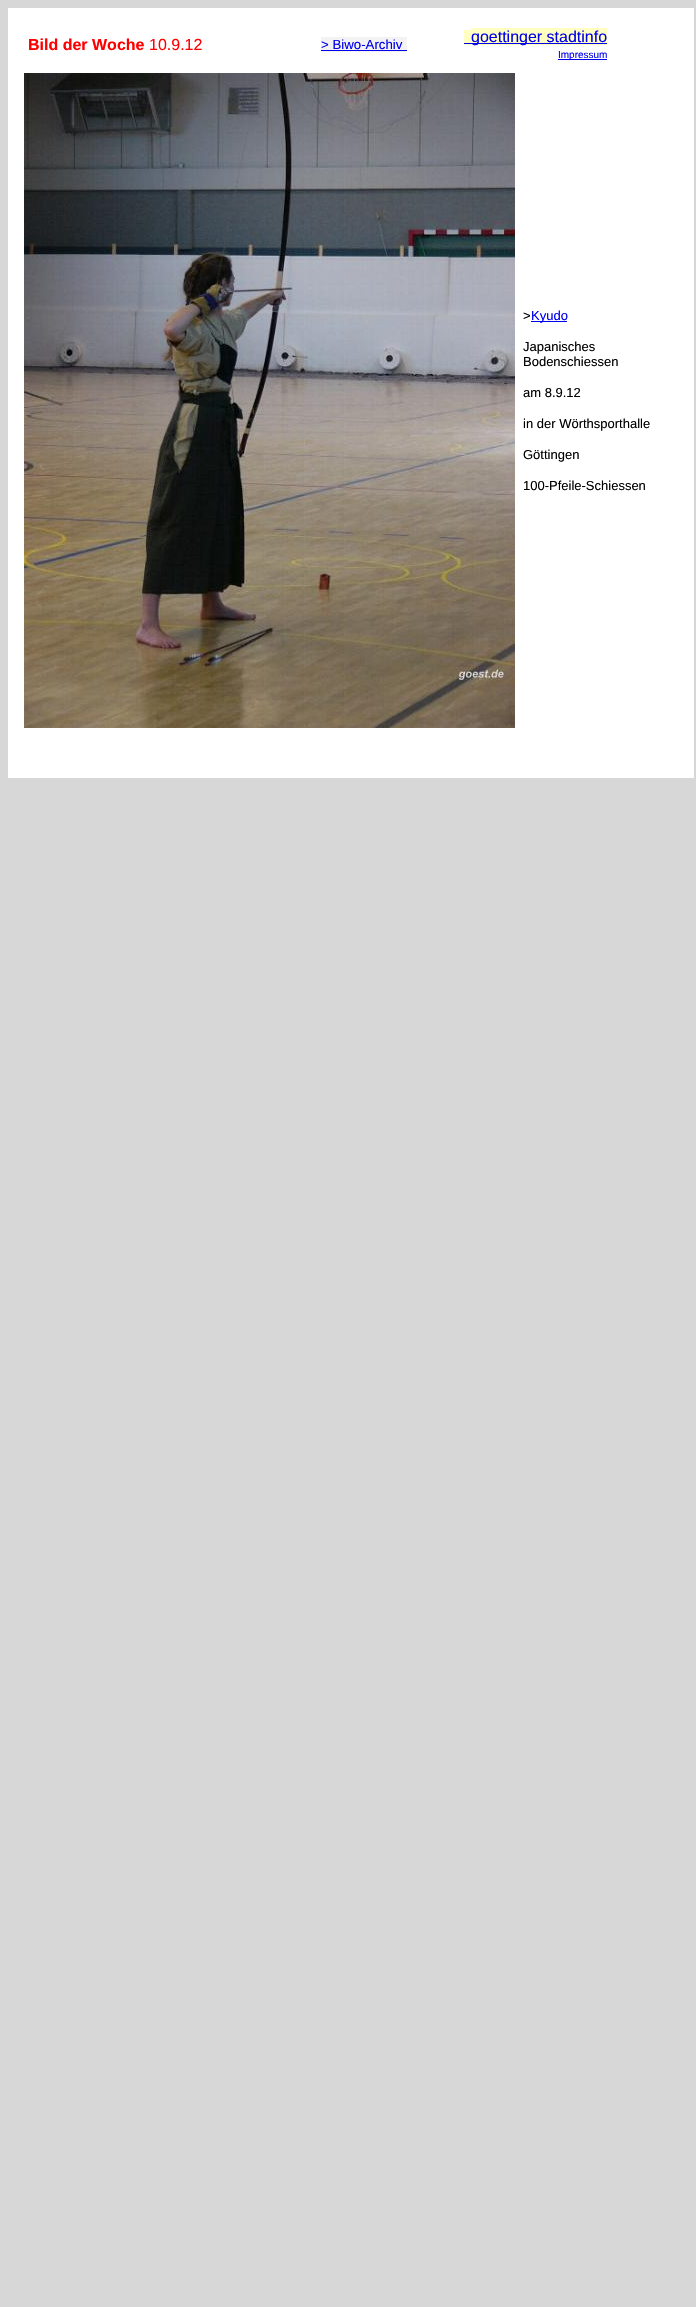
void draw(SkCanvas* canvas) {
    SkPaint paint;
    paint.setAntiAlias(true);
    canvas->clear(0xFFD7D7D7);
    paint.setColor(0xFFFFFFFF);
    canvas->drawRect(SkRect::MakeXYWH(8, 8, 686, 770), paint);
    SkFont font1(fontMgr->matchFamilyStyle("Liberation Sans", SkFontStyle::Bold()), 16);
    font1.setSubpixel(true);
    paint.setColor(0xFFFF0000);
    canvas->drawString("Bild der Woche", 28, 50, font1, paint);
    SkFont font2(fontMgr->matchFamilyStyle("Liberation Sans", SkFontStyle::Normal()), 16);
    font2.setSubpixel(true);
    canvas->drawString("10.9.12", 149, 50, font2, paint);
    paint.setColor(0xFFF3F3F3);
    canvas->drawRect(SkRect::MakeXYWH(321, 37, 86, 15), paint);
    SkFont font3(fontMgr->matchFamilyStyle("Liberation Sans", SkFontStyle::Normal()), 13.25f);
    font3.setSubpixel(true);
    paint.setColor(0xFF0000EE);
    canvas->drawString("> Biwo-Archiv", 321, 49, font3, paint);
    canvas->drawRect(SkRect::MakeXYWH(321, 50, 86, 1), paint);
    paint.setColor(0xFFFFFFC1);
    canvas->drawRect(SkRect::MakeXYWH(471, 28, 136, 17), paint);
    canvas->drawRect(SkRect::MakeXYWH(464, 30, 7, 15), paint);
    paint.setColor(0xFF0000EE);
    canvas->drawRect(SkRect::MakeXYWH(464, 43, 143, 1), paint);
    canvas->drawString("goettinger stadtinfo", 471, 42, font2, paint);
    canvas->drawRect(SkRect::MakeXYWH(558, 59, 49, 1), paint);
    SkFont font4(fontMgr->matchFamilyStyle("Liberation Sans", SkFontStyle::Normal()), 10);
    font4.setSubpixel(true);
    canvas->drawString("Impressum", 558, 58, font4, paint);
    canvas->drawImageRect(SkImages::DeferredFromEncodedData(SkData::MakeFromFileName("img1.png")), SkRect::MakeXYWH(24, 73, 491, 655), SkSamplingOptions());
    SkFont font5(fontMgr->matchFamilyStyle("Liberation Sans", SkFontStyle::Normal()), 13);
    font5.setSubpixel(true);
    paint.setColor(0xFF000000);
    canvas->drawString(">", 523, 320, font5, paint);
    paint.setColor(0xFF0000EE);
    canvas->drawRect(SkRect::MakeXYWH(531, 321, 36, 1), paint);
    canvas->drawString("Kyudo", 531, 320, font5, paint);
    paint.setColor(0xFF000000);
    canvas->drawString("Japanisches", 523, 351, font5, paint);
    canvas->drawString("Bodenschiessen", 523, 366, font5, paint);
    canvas->drawString("am 8.9.12", 523, 397, font5, paint);
    canvas->drawString("in der Wörthsporthalle", 523, 428, font5, paint);
    canvas->drawString("Göttingen", 523, 459, font5, paint);
    canvas->drawString("100-Pfeile-Schiessen", 523, 490, font5, paint);
}
